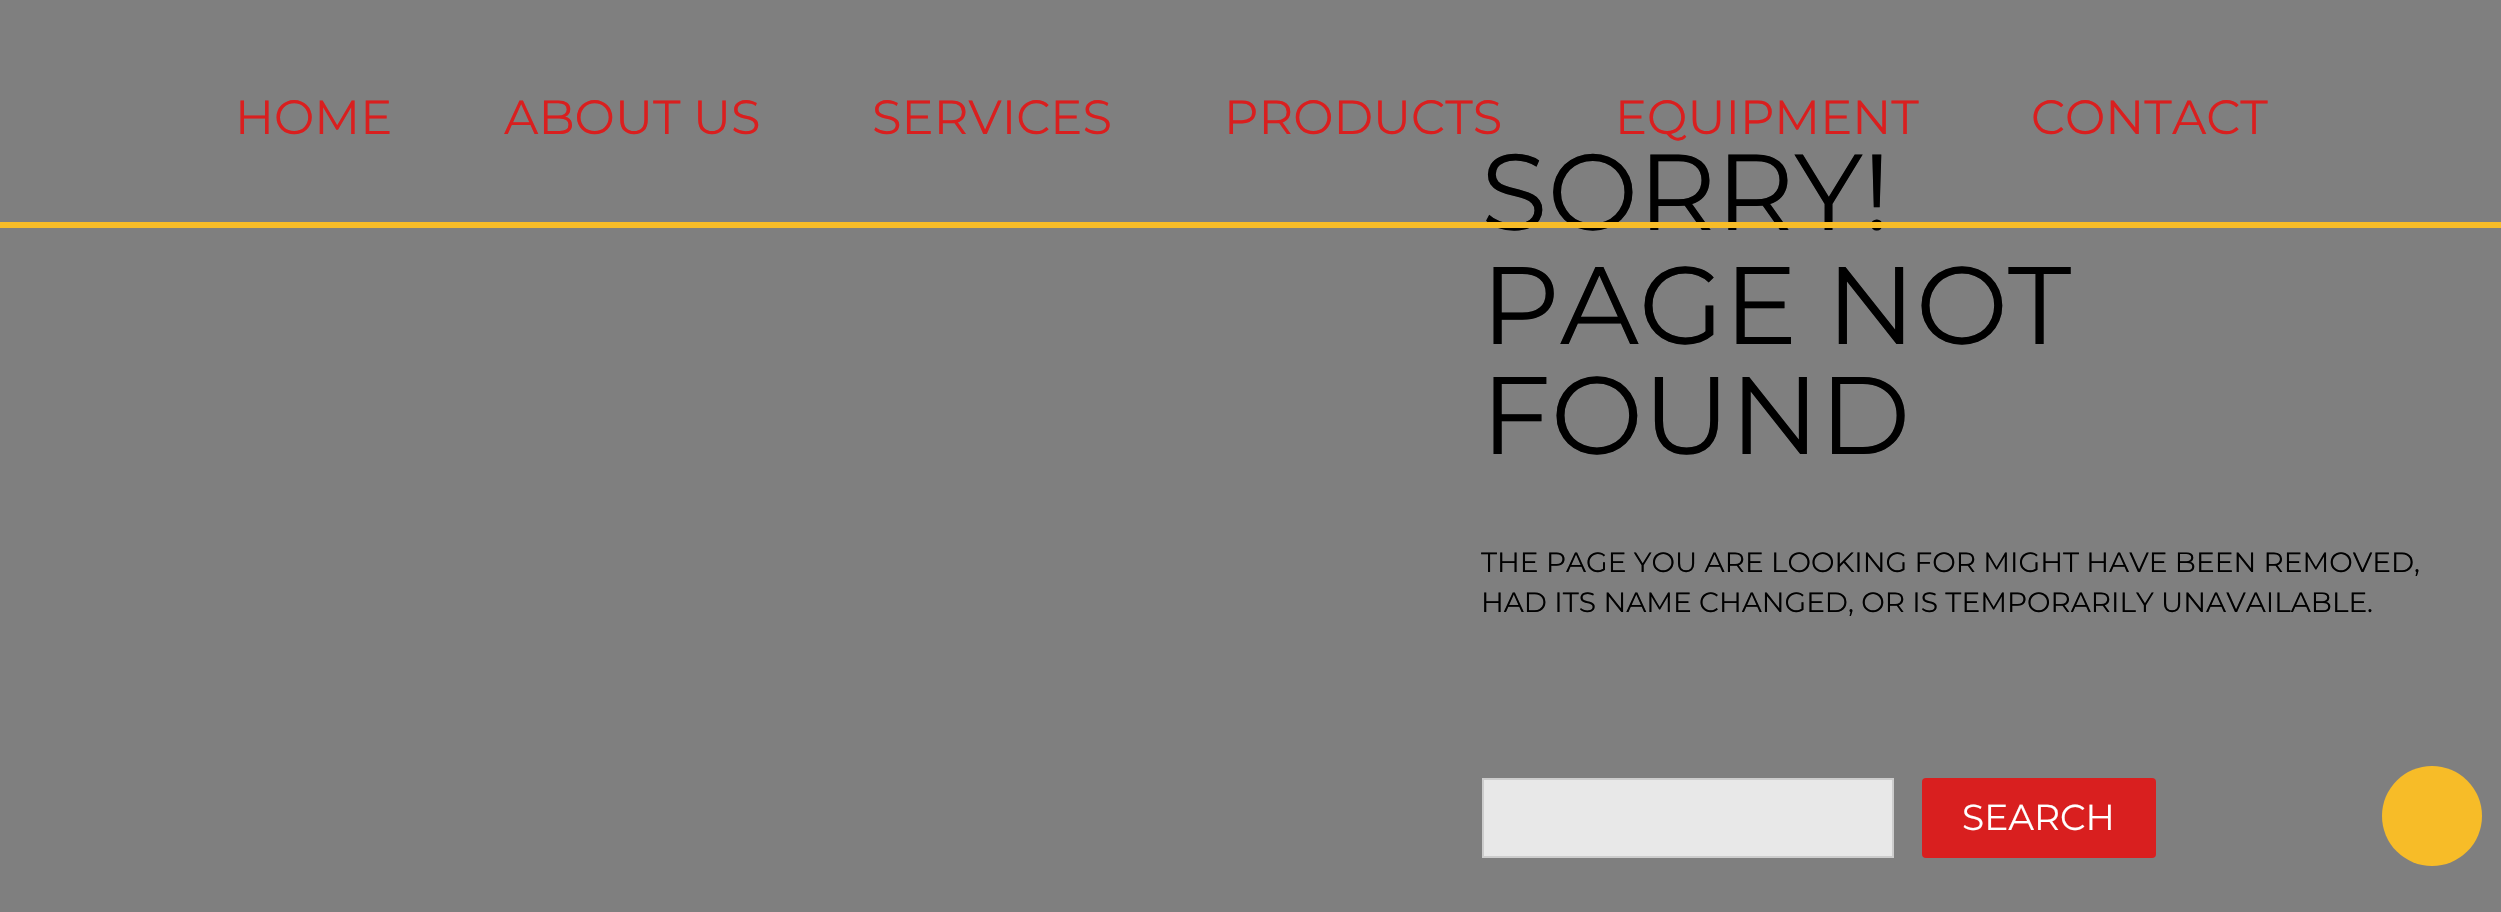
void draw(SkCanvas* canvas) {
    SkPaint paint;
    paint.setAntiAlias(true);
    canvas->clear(0xFF7F7F7F);
    SkFont font1(fontMgr->matchFamilyStyle("Montserrat", SkFontStyle(100, SkFontStyle::kNormal_Width, SkFontStyle::kUpright_Slant)), 108);
    font1.setSubpixel(true);
    paint.setColor(0xFF000000);
    canvas->drawString("SORRY!", 1481, 230, font1, paint);
    paint.setColor(0xFFF7BC28);
    canvas->drawRect(SkRect::MakeXYWH(0, 222, 2501, 6), paint);
    SkFont font2(fontMgr->matchFamilyStyle("Montserrat", SkFontStyle(100, SkFontStyle::kNormal_Width, SkFontStyle::kUpright_Slant)), 48);
    font2.setSubpixel(true);
    paint.setColor(0xFFD91F1F);
    canvas->drawString("HOME", 235, 134, font2, paint);
    canvas->drawString("ABOUT US", 504, 134, font2, paint);
    canvas->drawString("SERVICES", 872, 134, font2, paint);
    canvas->drawString("PRODUCTS", 1224, 134, font2, paint);
    canvas->drawString("EQUIPMENT", 1615, 134, font2, paint);
    canvas->drawString("CONTACT", 2031, 134, font2, paint);
    SkFont font3(fontMgr->matchFamilyStyle("Montserrat", SkFontStyle(100, SkFontStyle::kNormal_Width, SkFontStyle::kUpright_Slant)), 110);
    font3.setSubpixel(true);
    paint.setColor(0xFF000000);
    canvas->drawString("PAGE NOT", 1481, 344, font3, paint);
    canvas->drawString("FOUND", 1481, 454, font3, paint);
    SkFont font4(fontMgr->matchFamilyStyle("Montserrat", SkFontStyle(100, SkFontStyle::kNormal_Width, SkFontStyle::kUpright_Slant)), 28);
    font4.setSubpixel(true);
    canvas->drawString("THE PAGE YOU ARE LOOKING FOR MIGHT HAVE BEEN REMOVED,", 1481, 572, font4, paint);
    canvas->drawString("HAD ITS NAME CHANGED, OR IS TEMPORARILY UNAVAILABLE.", 1481, 612, font4, paint);
    paint.setColor(0xFFE8E8E8);
    canvas->drawRect(SkRect::MakeXYWH(1483, 779, 410, 78), paint);
    paint.setStyle(SkPaint::kStroke_Style);
    paint.setStrokeWidth(2);
    paint.setColor(0xFFCCCCCC);
    canvas->drawRect(SkRect::MakeXYWH(1483, 779, 410, 78), paint);
    paint.setStyle(SkPaint::kFill_Style);
    paint.setColor(0xFFD91F1F);
    canvas->drawRoundRect(SkRect::MakeXYWH(1922, 778, 234, 80), 4, 4, paint);
    SkFont font5(fontMgr->matchFamilyStyle("Montserrat", SkFontStyle(100, SkFontStyle::kNormal_Width, SkFontStyle::kUpright_Slant)), 36);
    font5.setSubpixel(true);
    paint.setColor(0xFFFFFFFF);
    canvas->drawString("SEARCH", 1962, 830, font5, paint);
    paint.setColor(0xFFF7BC28);
    canvas->drawCircle(2432, 816, 50, paint);
}
